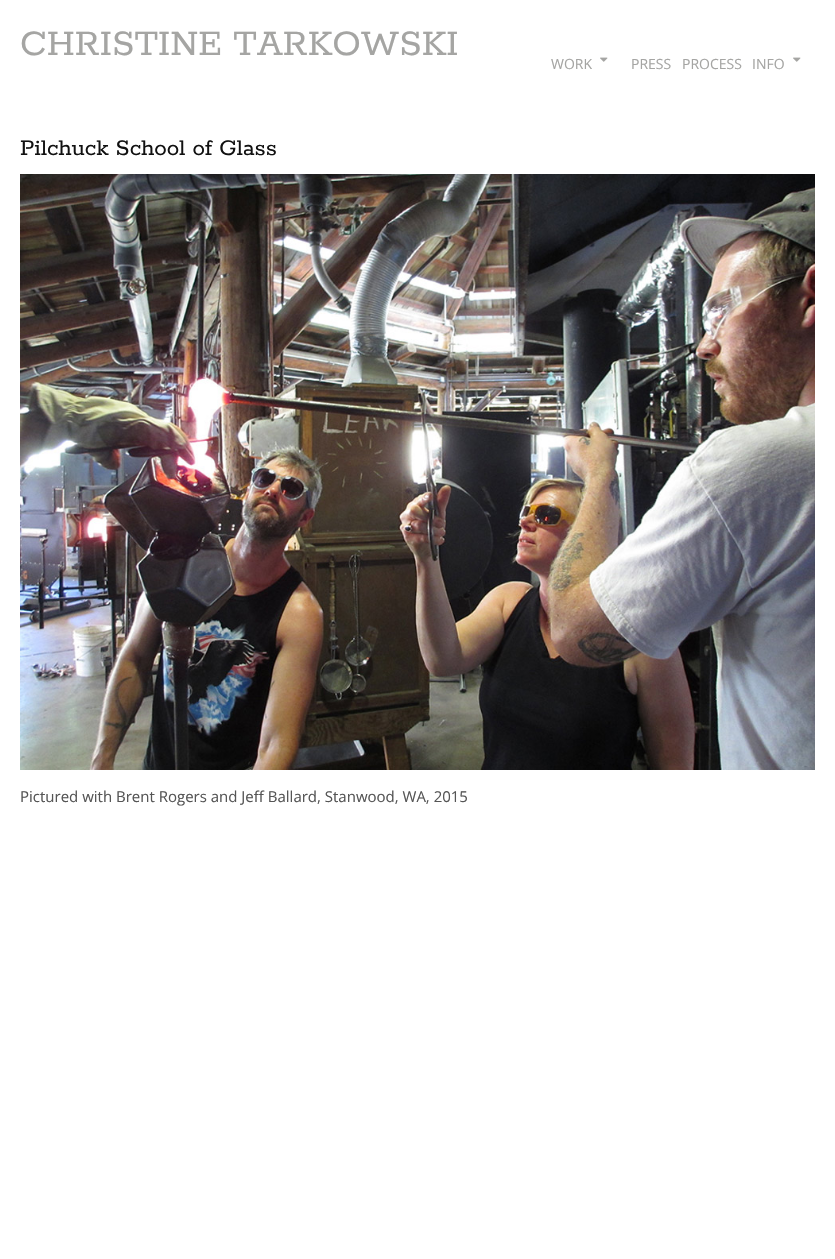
void draw(SkCanvas* canvas) {
    SkPaint paint;
    paint.setAntiAlias(true);
    canvas->clear(0xFFFFFFFF);
    SkFont font1(fontMgr->matchFamilyStyle("Rokkitt", SkFontStyle::Normal()), 40);
    font1.setSubpixel(true);
    paint.setColor(0xFFA5A5A3);
    canvas->drawString("CHRISTINE TARKOWSKI", 20, 55, font1, paint);
    SkFont font2(fontMgr->matchFamilyStyle("Open Sans", SkFontStyle::Normal()), 14);
    font2.setSubpixel(true);
    canvas->drawString("WORK", 551, 69, font2, paint);
    canvas->drawImageRect(SkImages::DeferredFromEncodedData(SkData::MakeFromFileName("img1.png")), SkRect::MakeXYWH(600, 57, 8, 5), SkSamplingOptions());
    canvas->drawString("PRESS", 631, 69, font2, paint);
    canvas->drawString("PROCESS", 682, 69, font2, paint);
    canvas->drawString("INFO", 752, 69, font2, paint);
    canvas->drawImageRect(SkImages::DeferredFromEncodedData(SkData::MakeFromFileName("img1.png")), SkRect::MakeXYWH(793, 57, 8, 5), SkSamplingOptions());
    SkFont font3(fontMgr->matchFamilyStyle("Rokkitt", SkFontStyle::Normal()), 25);
    font3.setSubpixel(true);
    paint.setColor(0xFF111111);
    canvas->drawString("Pilchuck School of Glass", 20, 155, font3, paint);
    canvas->drawImageRect(SkImages::DeferredFromEncodedData(SkData::MakeFromFileName("img2.png")), SkRect::MakeXYWH(20, 174, 795, 596), SkSamplingOptions());
    SkFont font4(fontMgr->matchFamilyStyle("Open Sans", SkFontStyle::Normal()), 15);
    font4.setSubpixel(true);
    paint.setColor(0xFF555555);
    canvas->drawString("Pictured with Brent Rogers and Jeff Ballard, Stanwood, WA, 2015", 20, 802, font4, paint);
}
